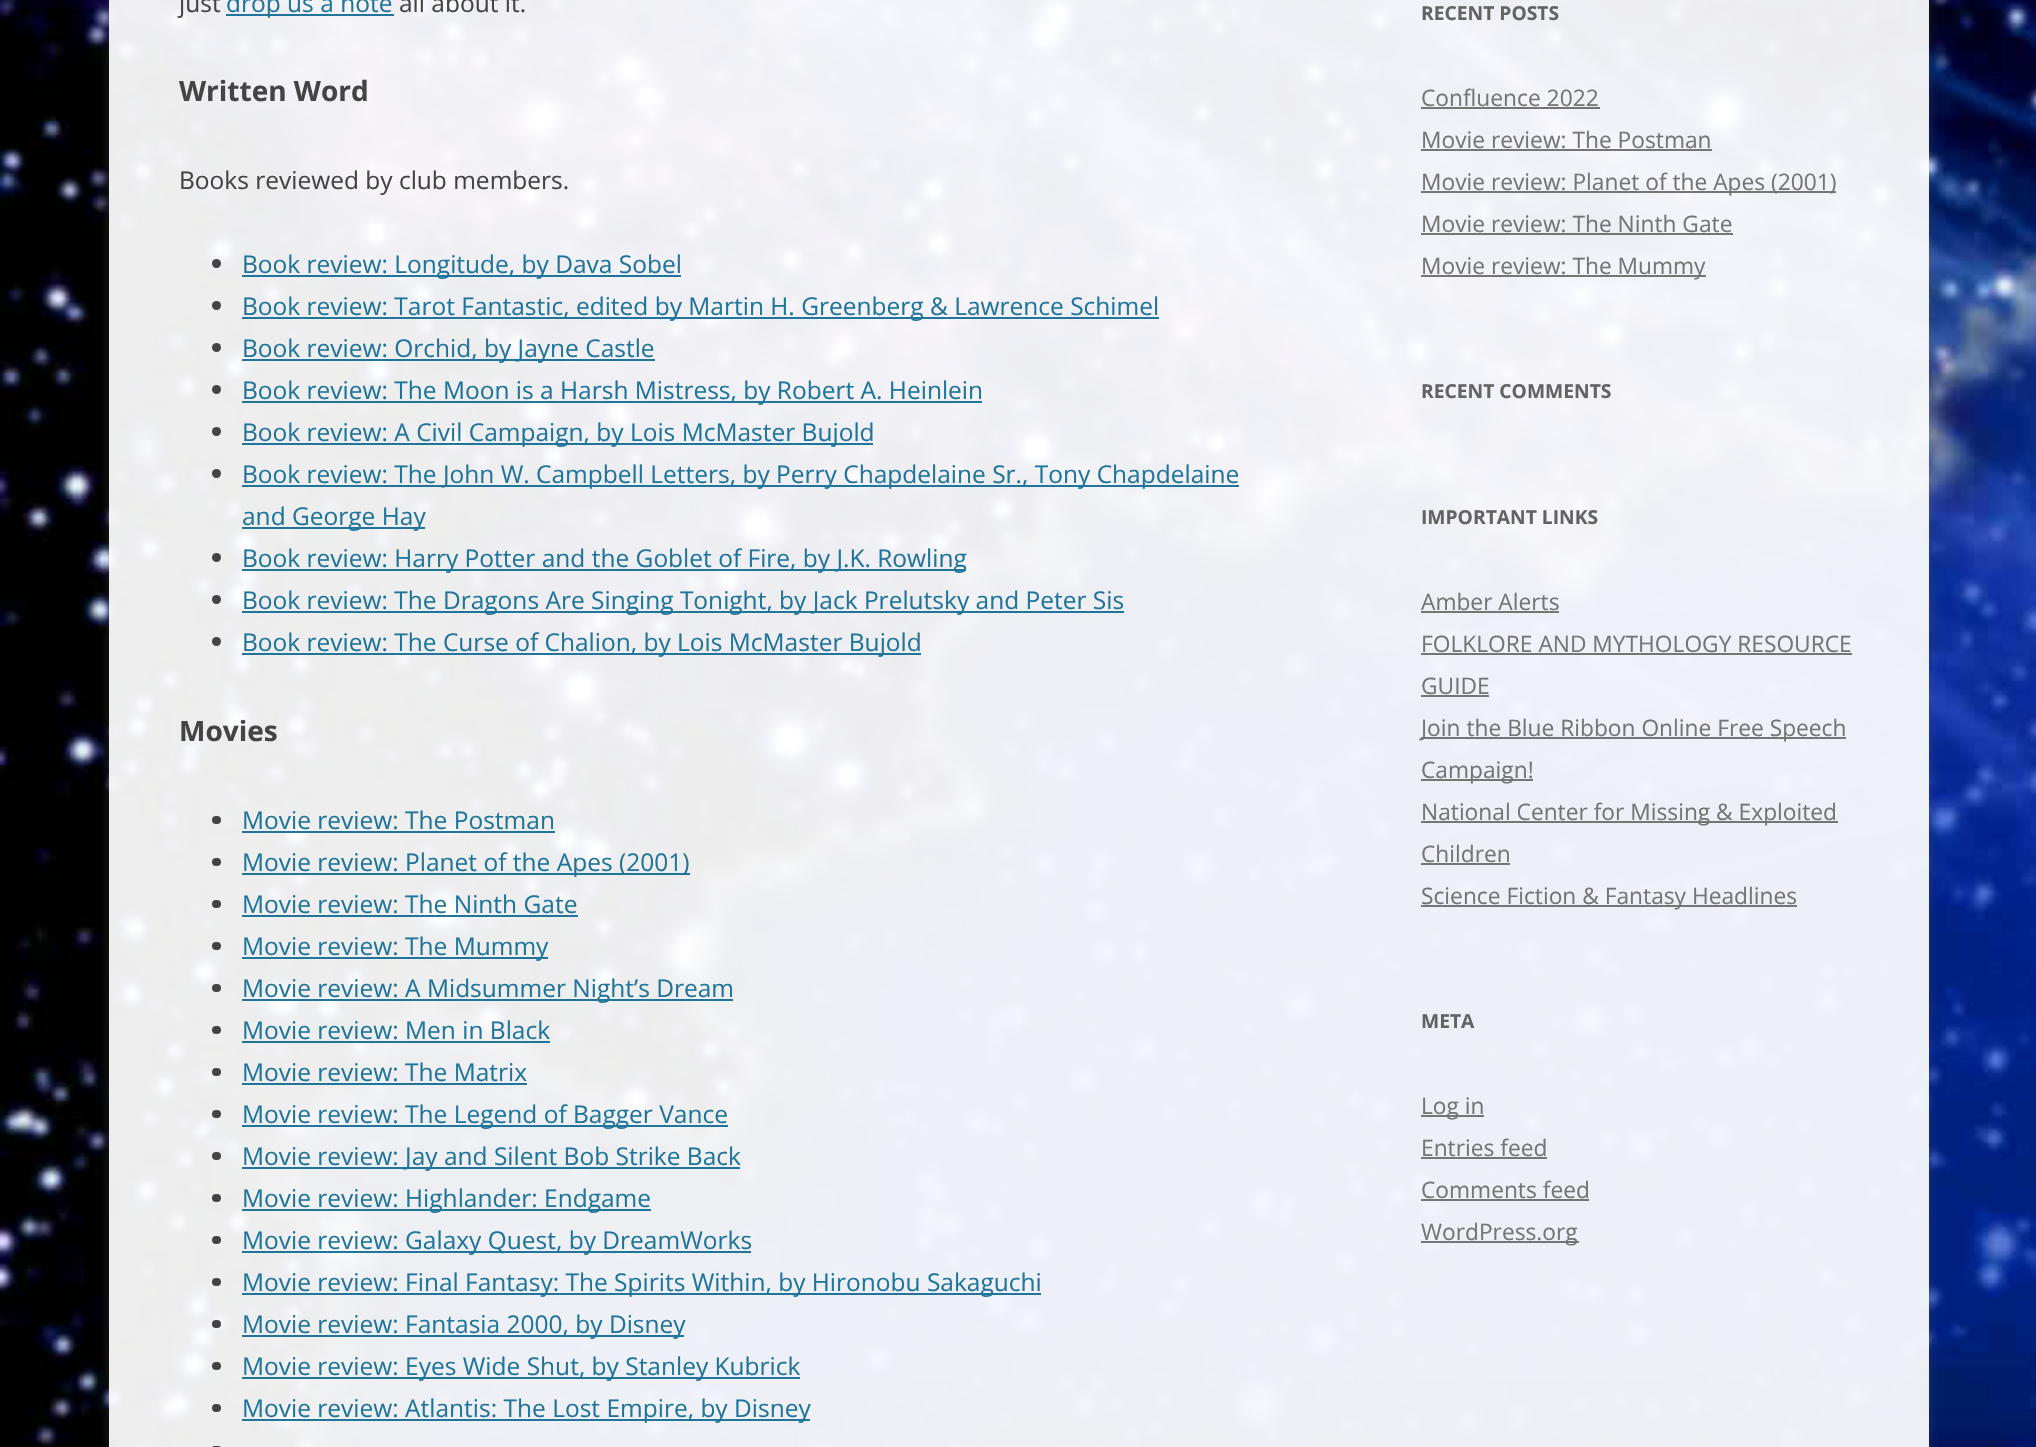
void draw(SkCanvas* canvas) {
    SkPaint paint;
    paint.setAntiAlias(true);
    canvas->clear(0xFFFFFFFF);
    canvas->drawImageRect(SkImages::DeferredFromEncodedData(SkData::MakeFromFileName("img1.png")), SkRect::MakeXYWH(0, 0, 2036, 1447), SkSamplingOptions());
    canvas->save();
    canvas->clipPath(SkPathBuilder(SkPathFillType::kEvenOdd).moveTo(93, 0).lineTo(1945, 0).lineTo(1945, 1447).lineTo(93, 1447).close().moveTo(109, -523).lineTo(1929, -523).lineTo(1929, 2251).lineTo(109, 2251).close().detach(), true);
    paint.setColor(0x4D646464);
    paint.setMaskFilter(SkMaskFilter::MakeBlur(kNormal_SkBlurStyle, 5));
    canvas->drawRect(SkRect::MakeXYWH(109, -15, 1820, 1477), paint);
    paint.setMaskFilter(nullptr);
    canvas->restore();
    paint.setColor(0xEDFFFFFF);
    canvas->drawRect(SkRect::MakeXYWH(109, 0, 1820, 1447), paint);
    SkFont font1(fontMgr->matchFamilyStyle("Open Sans", SkFontStyle::Normal()), 24.5f);
    font1.setSubpixel(true);
    paint.setColor(0xFF444444);
    canvas->drawString("just", 179, 12, font1, paint);
    paint.setColor(0xFF21759B);
    canvas->drawRect(SkRect::MakeXYWH(226, 14, 168, 2), paint);
    canvas->drawString("drop us a note", 226, 12, font1, paint);
    paint.setColor(0xFF444444);
    canvas->drawString("all about it.", 399, 12, font1, paint);
    SkFont font2(fontMgr->matchFamilyStyle("Open Sans", SkFontStyle::Bold()), 28);
    font2.setSubpixel(true);
    canvas->drawString("Written Word", 179, 101, font2, paint);
    canvas->drawString("Books reviewed by club members.", 179, 189, font1, paint);
    canvas->drawCircle(216.5f, 263.5f, 4.5f, paint);
    paint.setColor(0xFF21759B);
    canvas->drawRect(SkRect::MakeXYWH(242, 275, 439, 2), paint);
    canvas->drawString("Book review: Longitude, by Dava Sobel", 242, 273, font1, paint);
    paint.setColor(0xFF444444);
    canvas->drawCircle(216.5f, 305.5f, 4.5f, paint);
    paint.setColor(0xFF21759B);
    canvas->drawRect(SkRect::MakeXYWH(242, 317, 917, 2), paint);
    canvas->drawString("Book review: Tarot Fantastic, edited by Martin H. Greenberg & Lawrence Schimel", 242, 315, font1, paint);
    paint.setColor(0xFF444444);
    canvas->drawCircle(216.5f, 347.5f, 4.5f, paint);
    paint.setColor(0xFF21759B);
    canvas->drawRect(SkRect::MakeXYWH(242, 359, 413, 2), paint);
    canvas->drawString("Book review: Orchid, by Jayne Castle", 242, 357, font1, paint);
    paint.setColor(0xFF444444);
    canvas->drawCircle(216.5f, 389.5f, 4.5f, paint);
    paint.setColor(0xFF21759B);
    canvas->drawRect(SkRect::MakeXYWH(242, 401, 740, 2), paint);
    canvas->drawString("Book review: The Moon is a Harsh Mistress, by Robert A. Heinlein", 242, 399, font1, paint);
    paint.setColor(0xFF444444);
    canvas->drawCircle(216.5f, 431.5f, 4.5f, paint);
    paint.setColor(0xFF21759B);
    canvas->drawRect(SkRect::MakeXYWH(242, 443, 631, 2), paint);
    canvas->drawString("Book review: A Civil Campaign, by Lois McMaster Bujold", 242, 441, font1, paint);
    paint.setColor(0xFF444444);
    canvas->drawCircle(216.5f, 473.5f, 4.5f, paint);
    paint.setColor(0xFF21759B);
    canvas->drawRect(SkRect::MakeXYWH(242, 485, 997, 2), paint);
    canvas->drawString("Book review: The John W. Campbell Letters, by Perry Chapdelaine Sr., Tony Chapdelaine", 242, 483, font1, paint);
    canvas->drawRect(SkRect::MakeXYWH(242, 527, 183, 2), paint);
    canvas->drawString("and George Hay", 242, 525, font1, paint);
    paint.setColor(0xFF444444);
    canvas->drawCircle(216.5f, 557.5f, 4.5f, paint);
    paint.setColor(0xFF21759B);
    canvas->drawRect(SkRect::MakeXYWH(242, 569, 724, 2), paint);
    canvas->drawString("Book review: Harry Potter and the Goblet of Fire, by J.K. Rowling", 242, 567, font1, paint);
    paint.setColor(0xFF444444);
    canvas->drawCircle(216.5f, 599.5f, 4.5f, paint);
    paint.setColor(0xFF21759B);
    canvas->drawRect(SkRect::MakeXYWH(242, 611, 882, 2), paint);
    canvas->drawString("Book review: The Dragons Are Singing Tonight, by Jack Prelutsky and Peter Sis", 242, 609, font1, paint);
    paint.setColor(0xFF444444);
    canvas->drawCircle(216.5f, 641.5f, 4.5f, paint);
    paint.setColor(0xFF21759B);
    canvas->drawRect(SkRect::MakeXYWH(242, 653, 679, 2), paint);
    canvas->drawString("Book review: The Curse of Chalion, by Lois McMaster Bujold", 242, 651, font1, paint);
    paint.setColor(0xFF444444);
    canvas->drawString("Movies", 179, 741, font2, paint);
    canvas->drawRoundRect(SkRect::MakeXYWH(212, 816, 9, 8), 4, 4, paint);
    paint.setColor(0xFF21759B);
    canvas->drawString("Movie review: The Postman", 242, 829, font1, paint);
    canvas->drawRect(SkRect::MakeXYWH(242, 831, 313, 2), paint);
    paint.setColor(0xFF444444);
    canvas->drawRoundRect(SkRect::MakeXYWH(212, 858, 9, 8), 4, 4, paint);
    paint.setColor(0xFF21759B);
    canvas->drawRect(SkRect::MakeXYWH(242, 873, 448, 2), paint);
    canvas->drawString("Movie review: Planet of the Apes (2001)", 242, 871, font1, paint);
    paint.setColor(0xFF444444);
    canvas->drawRoundRect(SkRect::MakeXYWH(212, 900, 9, 8), 4, 4, paint);
    paint.setColor(0xFF21759B);
    canvas->drawString("Movie review: The Ninth Gate", 242, 913, font1, paint);
    canvas->drawRect(SkRect::MakeXYWH(242, 915, 336, 2), paint);
    paint.setColor(0xFF444444);
    canvas->drawRoundRect(SkRect::MakeXYWH(212, 942, 9, 8), 4, 4, paint);
    paint.setColor(0xFF21759B);
    canvas->drawRect(SkRect::MakeXYWH(242, 957, 306, 2), paint);
    canvas->drawString("Movie review: The Mummy", 242, 955, font1, paint);
    paint.setColor(0xFF444444);
    canvas->drawRoundRect(SkRect::MakeXYWH(212, 984, 9, 8), 4, 4, paint);
    paint.setColor(0xFF21759B);
    canvas->drawRect(SkRect::MakeXYWH(242, 999, 491, 2), paint);
    canvas->drawString("Movie review: A Midsummer Night’s Dream", 242, 997, font1, paint);
    paint.setColor(0xFF444444);
    canvas->drawRoundRect(SkRect::MakeXYWH(212, 1026, 9, 8), 4, 4, paint);
    paint.setColor(0xFF21759B);
    canvas->drawString("Movie review: Men in Black", 242, 1039, font1, paint);
    canvas->drawRect(SkRect::MakeXYWH(242, 1041, 308, 2), paint);
    paint.setColor(0xFF444444);
    canvas->drawRoundRect(SkRect::MakeXYWH(212, 1068, 9, 8), 4, 4, paint);
    paint.setColor(0xFF21759B);
    canvas->drawString("Movie review: The Matrix", 242, 1081, font1, paint);
    canvas->drawRect(SkRect::MakeXYWH(242, 1083, 285, 2), paint);
    paint.setColor(0xFF444444);
    canvas->drawRoundRect(SkRect::MakeXYWH(212, 1110, 9, 8), 4, 4, paint);
    paint.setColor(0xFF21759B);
    canvas->drawRect(SkRect::MakeXYWH(242, 1125, 486, 2), paint);
    canvas->drawString("Movie review: The Legend of Bagger Vance", 242, 1123, font1, paint);
    paint.setColor(0xFF444444);
    canvas->drawRoundRect(SkRect::MakeXYWH(212, 1152, 9, 8), 4, 4, paint);
    paint.setColor(0xFF21759B);
    canvas->drawRect(SkRect::MakeXYWH(242, 1167, 498, 2), paint);
    canvas->drawString("Movie review: Jay and Silent Bob Strike Back", 242, 1165, font1, paint);
    paint.setColor(0xFF444444);
    canvas->drawRoundRect(SkRect::MakeXYWH(212, 1194, 9, 8), 4, 4, paint);
    paint.setColor(0xFF21759B);
    canvas->drawRect(SkRect::MakeXYWH(242, 1209, 409, 2), paint);
    canvas->drawString("Movie review: Highlander: Endgame", 242, 1207, font1, paint);
    paint.setColor(0xFF444444);
    canvas->drawRoundRect(SkRect::MakeXYWH(212, 1236, 9, 8), 4, 4, paint);
    paint.setColor(0xFF21759B);
    canvas->drawRect(SkRect::MakeXYWH(242, 1251, 509, 2), paint);
    canvas->drawString("Movie review: Galaxy Quest, by DreamWorks", 242, 1249, font1, paint);
    paint.setColor(0xFF444444);
    canvas->drawRoundRect(SkRect::MakeXYWH(212, 1278, 9, 8), 4, 4, paint);
    paint.setColor(0xFF21759B);
    canvas->drawRect(SkRect::MakeXYWH(242, 1293, 799, 2), paint);
    canvas->drawString("Movie review: Final Fantasy: The Spirits Within, by Hironobu Sakaguchi", 242, 1291, font1, paint);
    paint.setColor(0xFF444444);
    canvas->drawRoundRect(SkRect::MakeXYWH(212, 1320, 9, 8), 4, 4, paint);
    paint.setColor(0xFF21759B);
    canvas->drawRect(SkRect::MakeXYWH(242, 1335, 442, 2), paint);
    canvas->drawString("Movie review: Fantasia 2000, by Disney", 242, 1333, font1, paint);
    paint.setColor(0xFF444444);
    canvas->drawRoundRect(SkRect::MakeXYWH(212, 1362, 9, 8), 4, 4, paint);
    paint.setColor(0xFF21759B);
    canvas->drawRect(SkRect::MakeXYWH(242, 1377, 558, 2), paint);
    canvas->drawString("Movie review: Eyes Wide Shut, by Stanley Kubrick", 242, 1375, font1, paint);
    paint.setColor(0xFF444444);
    canvas->drawRoundRect(SkRect::MakeXYWH(212, 1404, 9, 8), 4, 4, paint);
    paint.setColor(0xFF21759B);
    canvas->drawRect(SkRect::MakeXYWH(242, 1419, 568, 2), paint);
    canvas->drawString("Movie review: Atlantis: The Lost Empire, by Disney", 242, 1417, font1, paint);
    paint.setColor(0xFF444444);
    canvas->drawRoundRect(SkRect::MakeXYWH(212, 1446, 9, 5), 4, 4, paint);
    SkFont font3(fontMgr->matchFamilyStyle("Open Sans", SkFontStyle::Bold()), 19.25f);
    font3.setSubpixel(true);
    paint.setColor(0xFF636363);
    canvas->drawString("RECENT POSTS", 1421, 20, font3, paint);
    SkFont font4(fontMgr->matchFamilyStyle("Open Sans", SkFontStyle::Normal()), 22.75f);
    font4.setSubpixel(true);
    paint.setColor(0xFF757575);
    canvas->drawString("Confluence 2022", 1421, 106, font4, paint);
    canvas->drawRect(SkRect::MakeXYWH(1421, 107, 179, 2), paint);
    canvas->drawString("Movie review: The Postman", 1421, 148, font4, paint);
    canvas->drawRect(SkRect::MakeXYWH(1421, 149, 291, 2), paint);
    canvas->drawRect(SkRect::MakeXYWH(1421, 191, 415, 2), paint);
    canvas->drawString("Movie review: Planet of the Apes (2001)", 1421, 190, font4, paint);
    canvas->drawString("Movie review: The Ninth Gate", 1421, 232, font4, paint);
    canvas->drawRect(SkRect::MakeXYWH(1421, 233, 312, 2), paint);
    canvas->drawRect(SkRect::MakeXYWH(1421, 275, 285, 2), paint);
    canvas->drawString("Movie review: The Mummy", 1421, 274, font4, paint);
    paint.setColor(0xFF636363);
    canvas->drawString("RECENT COMMENTS", 1421, 398, font3, paint);
    canvas->drawString("IMPORTANT LINKS", 1421, 524, font3, paint);
    paint.setColor(0xFF757575);
    canvas->drawString("Amber Alerts", 1421, 610, font4, paint);
    canvas->drawRect(SkRect::MakeXYWH(1421, 611, 138, 2), paint);
    canvas->drawString("FOLKLORE AND MYTHOLOGY RESOURCE", 1421, 652, font4, paint);
    canvas->drawRect(SkRect::MakeXYWH(1421, 653, 431, 2), paint);
    canvas->drawString("GUIDE", 1421, 694, font4, paint);
    canvas->drawRect(SkRect::MakeXYWH(1421, 695, 68, 2), paint);
    canvas->drawRect(SkRect::MakeXYWH(1421, 737, 425, 2), paint);
    canvas->drawString("Join the Blue Ribbon Online Free Speech", 1421, 736, font4, paint);
    canvas->drawRect(SkRect::MakeXYWH(1421, 779, 112, 2), paint);
    canvas->drawString("Campaign!", 1421, 778, font4, paint);
    canvas->drawRect(SkRect::MakeXYWH(1421, 821, 417, 2), paint);
    canvas->drawString("National Center for Missing & Exploited", 1421, 820, font4, paint);
    canvas->drawString("Children", 1421, 862, font4, paint);
    canvas->drawRect(SkRect::MakeXYWH(1421, 863, 89, 2), paint);
    canvas->drawRect(SkRect::MakeXYWH(1421, 905, 376, 2), paint);
    canvas->drawString("Science Fiction & Fantasy Headlines", 1421, 904, font4, paint);
    paint.setColor(0xFF636363);
    canvas->drawString("META", 1421, 1028, font3, paint);
    paint.setColor(0xFF757575);
    canvas->drawRect(SkRect::MakeXYWH(1421, 1115, 63, 2), paint);
    canvas->drawString("Log in", 1421, 1114, font4, paint);
    canvas->drawString("Entries feed", 1421, 1156, font4, paint);
    canvas->drawRect(SkRect::MakeXYWH(1421, 1157, 126, 2), paint);
    canvas->drawString("Comments feed", 1421, 1198, font4, paint);
    canvas->drawRect(SkRect::MakeXYWH(1421, 1199, 168, 2), paint);
    canvas->drawRect(SkRect::MakeXYWH(1421, 1241, 158, 2), paint);
    canvas->drawString("WordPress.org", 1421, 1240, font4, paint);
}
